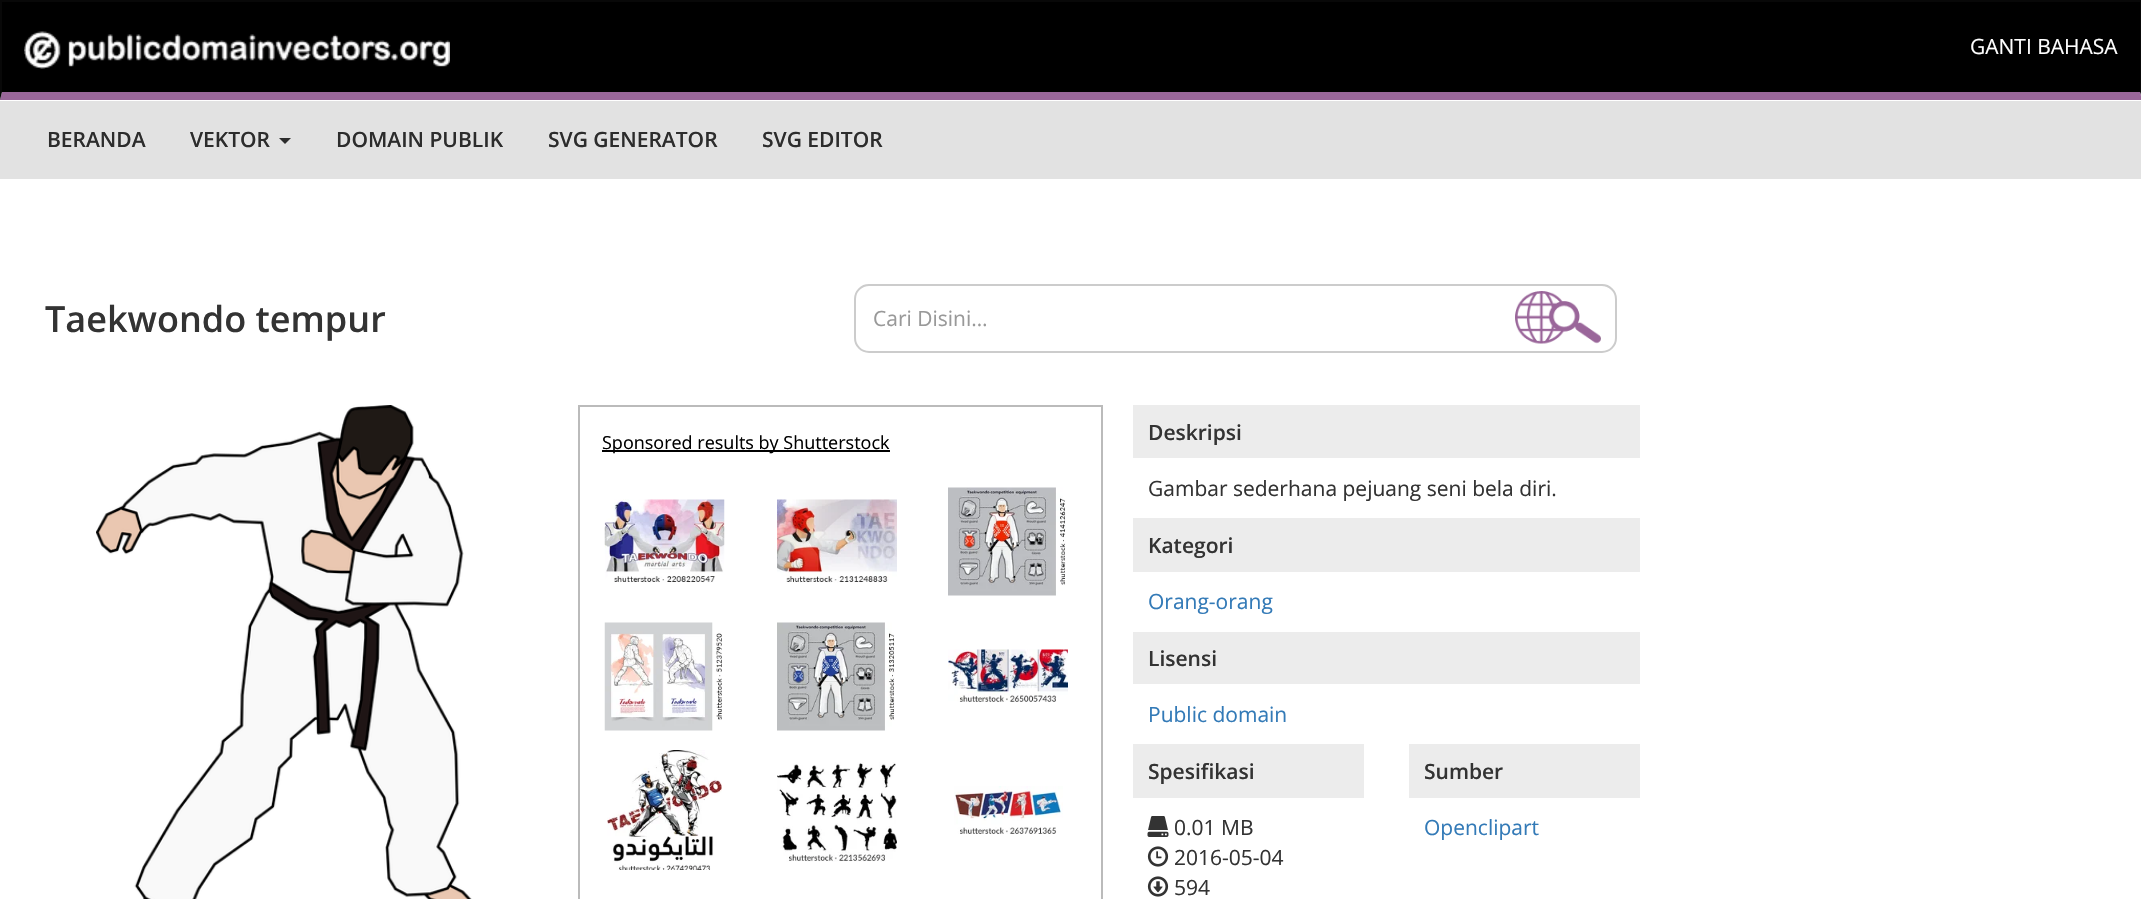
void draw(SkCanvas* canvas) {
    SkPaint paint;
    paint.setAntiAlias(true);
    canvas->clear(0xFFFFFFFF);
    paint.setColor(0xFF000000);
    canvas->drawRect(SkRect::MakeXYWH(2, 2, 2138, 90), paint);
    paint.setColor(0xFF080808);
    canvas->drawRect(SkRect::MakeXYWH(0, 0, 2141, 2), paint);
    canvas->drawPath(SkPathBuilder().moveTo(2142, 0).lineTo(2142, 100).lineTo(2140, 92).lineTo(2140, 2).close().detach(), paint);
    paint.setColor(0xFF996699);
    canvas->drawPath(SkPathBuilder().moveTo(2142, 100).lineTo(0, 100).lineTo(2, 92).lineTo(2140, 92).close().detach(), paint);
    paint.setColor(0xFF080808);
    canvas->drawPath(SkPathBuilder().moveTo(0, 100).lineTo(0, 0).lineTo(2, 2).lineTo(2, 92).close().detach(), paint);
    canvas->drawImageRect(SkImages::DeferredFromEncodedData(SkData::MakeFromFileName("img1.png")), SkRect::MakeXYWH(24, 31, 426, 38), SkSamplingOptions());
    SkFont font1(fontMgr->matchFamilyStyle("Open Sans", SkFontStyle::Normal()), 21);
    font1.setSubpixel(true);
    paint.setColor(0xFFFFFFFF);
    canvas->drawString("GANTI BAHASA", 1970, 54, font1, paint);
    paint.setColor(0xFFE2E2E2);
    canvas->drawRect(SkRect::MakeXYWH(0, 101, 2141, 78), paint);
    SkFont font2(fontMgr->matchFamilyStyle("Open Sans", SkFontStyle(600, SkFontStyle::kNormal_Width, SkFontStyle::kUpright_Slant)), 21);
    font2.setSubpixel(true);
    paint.setColor(0xFF2C2C2C);
    canvas->drawString("BERANDA", 47, 147, font2, paint);
    canvas->drawString("VEKTOR", 190, 147, font2, paint);
    canvas->drawPath(SkPathBuilder().moveTo(279, 138).lineTo(291, 138).lineTo(285, 144).close().detach(), paint);
    canvas->drawString("DOMAIN PUBLIK", 336, 147, font2, paint);
    canvas->drawString("SVG GENERATOR", 548, 147, font2, paint);
    canvas->drawString("SVG EDITOR", 762, 147, font2, paint);
    SkFont font3(fontMgr->matchFamilyStyle("Open Sans", SkFontStyle(600, SkFontStyle::kNormal_Width, SkFontStyle::kUpright_Slant)), 36);
    font3.setSubpixel(true);
    paint.setColor(0xFF333333);
    canvas->drawString("Taekwondo tempur", 45, 332, font3, paint);
    canvas->drawImageRect(SkImages::DeferredFromEncodedData(SkData::MakeFromFileName("img2.png")), SkRect::MakeXYWH(1515, 291, 86, 53), SkSamplingOptions());
    paint.setColor(0xFFECECEC);
    canvas->drawPath(SkPathBuilder().moveTo(868, 286).lineTo(1602, 286).cubicTo(1609, 286, 1616, 293, 1616, 300).cubicTo(1616, 292, 1610, 285, 1602, 285).lineTo(869, 285).cubicTo(861, 285, 855, 292, 855, 300).cubicTo(855, 293, 861, 286, 868, 286).close().detach(), paint);
    paint.setStyle(SkPaint::kStroke_Style);
    paint.setStrokeWidth(2);
    paint.setColor(0xFFCCCCCC);
    canvas->drawRoundRect(SkRect::MakeXYWH(855, 285, 761, 67), 14, 14, paint);
    paint.setStyle(SkPaint::kFill_Style);
    paint.setColor(0xFF999999);
    canvas->drawString("Cari Disini…", 873, 326, font1, paint);
    canvas->drawImageRect(SkImages::DeferredFromEncodedData(SkData::MakeFromFileName("img3.png")), SkRect::MakeXYWH(96, 405, 376, 494), SkSamplingOptions());
    paint.setColor(0xFFBBBBBB);
    canvas->drawRect(SkRect::MakeXYWH(578, 405, 525, 2), paint);
    canvas->drawRect(SkRect::MakeXYWH(1101, 405, 2, 494), paint);
    canvas->drawRect(SkRect::MakeXYWH(578, 405, 2, 494), paint);
    paint.setColor(0xFF000000);
    canvas->drawRect(SkRect::MakeXYWH(602, 450, 288, 2), paint);
    SkFont font4(fontMgr->matchFamilyStyle("Open Sans", SkFontStyle::Normal()), 18);
    font4.setSubpixel(true);
    canvas->drawString("Sponsored results by Shutterstock", 602, 449, font4, paint);
    canvas->drawImageRect(SkImages::DeferredFromEncodedData(SkData::MakeFromFileName("img4.png")), SkRect::MakeXYWH(604, 499, 121, 84), SkSamplingOptions());
    canvas->drawImageRect(SkImages::DeferredFromEncodedData(SkData::MakeFromFileName("img5.png")), SkRect::MakeXYWH(777, 499, 120, 84), SkSamplingOptions());
    canvas->drawImageRect(SkImages::DeferredFromEncodedData(SkData::MakeFromFileName("img6.png")), SkRect::MakeXYWH(948, 487, 118, 109), SkSamplingOptions());
    canvas->drawImageRect(SkImages::DeferredFromEncodedData(SkData::MakeFromFileName("img7.png")), SkRect::MakeXYWH(604, 622, 118, 109), SkSamplingOptions());
    canvas->drawImageRect(SkImages::DeferredFromEncodedData(SkData::MakeFromFileName("img8.png")), SkRect::MakeXYWH(777, 622, 118, 109), SkSamplingOptions());
    canvas->drawImageRect(SkImages::DeferredFromEncodedData(SkData::MakeFromFileName("img9.png")), SkRect::MakeXYWH(948, 649, 120, 53), SkSamplingOptions());
    canvas->drawImageRect(SkImages::DeferredFromEncodedData(SkData::MakeFromFileName("img10.png")), SkRect::MakeXYWH(607, 750, 115, 120), SkSamplingOptions());
    canvas->drawImageRect(SkImages::DeferredFromEncodedData(SkData::MakeFromFileName("img11.png")), SkRect::MakeXYWH(777, 762, 120, 100), SkSamplingOptions());
    canvas->drawImageRect(SkImages::DeferredFromEncodedData(SkData::MakeFromFileName("img12.png")), SkRect::MakeXYWH(954, 786, 109, 48), SkSamplingOptions());
    paint.setColor(0xFFECECEC);
    canvas->drawRect(SkRect::MakeXYWH(1133, 405, 507, 53), paint);
    paint.setColor(0xFF333333);
    canvas->drawString("Deskripsi", 1148, 440, font2, paint);
    canvas->drawString("Gambar sederhana pejuang seni bela diri.", 1148, 496, font1, paint);
    paint.setColor(0xFFECECEC);
    canvas->drawRect(SkRect::MakeXYWH(1133, 518, 507, 54), paint);
    paint.setColor(0xFF333333);
    canvas->drawString("Kategori", 1148, 553, font2, paint);
    paint.setColor(0xFF337AB7);
    canvas->drawString("Orang-orang", 1148, 609, font1, paint);
    paint.setColor(0xFFECECEC);
    canvas->drawRect(SkRect::MakeXYWH(1133, 632, 507, 52), paint);
    paint.setColor(0xFF333333);
    canvas->drawString("Lisensi", 1148, 666, font2, paint);
    paint.setColor(0xFF337AB7);
    canvas->drawString("Public domain", 1148, 722, font1, paint);
    paint.setColor(0xFFECECEC);
    canvas->drawRect(SkRect::MakeXYWH(1133, 744, 231, 54), paint);
    paint.setColor(0xFF333333);
    canvas->drawString("Spesifikasi", 1148, 779, font2, paint);
    canvas->drawImageRect(SkImages::DeferredFromEncodedData(SkData::MakeFromFileName("img13.png")), SkRect::MakeXYWH(1147, 816, 22, 21), SkSamplingOptions());
    canvas->drawString("0.01 MB", 1174, 835, font1, paint);
    canvas->drawImageRect(SkImages::DeferredFromEncodedData(SkData::MakeFromFileName("img14.png")), SkRect::MakeXYWH(1147, 846, 22, 21), SkSamplingOptions());
    canvas->drawString("2016-05-04", 1174, 865, font1, paint);
    canvas->drawImageRect(SkImages::DeferredFromEncodedData(SkData::MakeFromFileName("img15.png")), SkRect::MakeXYWH(1147, 876, 22, 21), SkSamplingOptions());
    canvas->drawString("594", 1174, 895, font1, paint);
    paint.setColor(0xFFECECEC);
    canvas->drawRect(SkRect::MakeXYWH(1409, 744, 231, 54), paint);
    paint.setColor(0xFF333333);
    canvas->drawString("Sumber", 1424, 779, font2, paint);
    paint.setColor(0xFF337AB7);
    canvas->drawString("Openclipart", 1424, 835, font1, paint);
}
